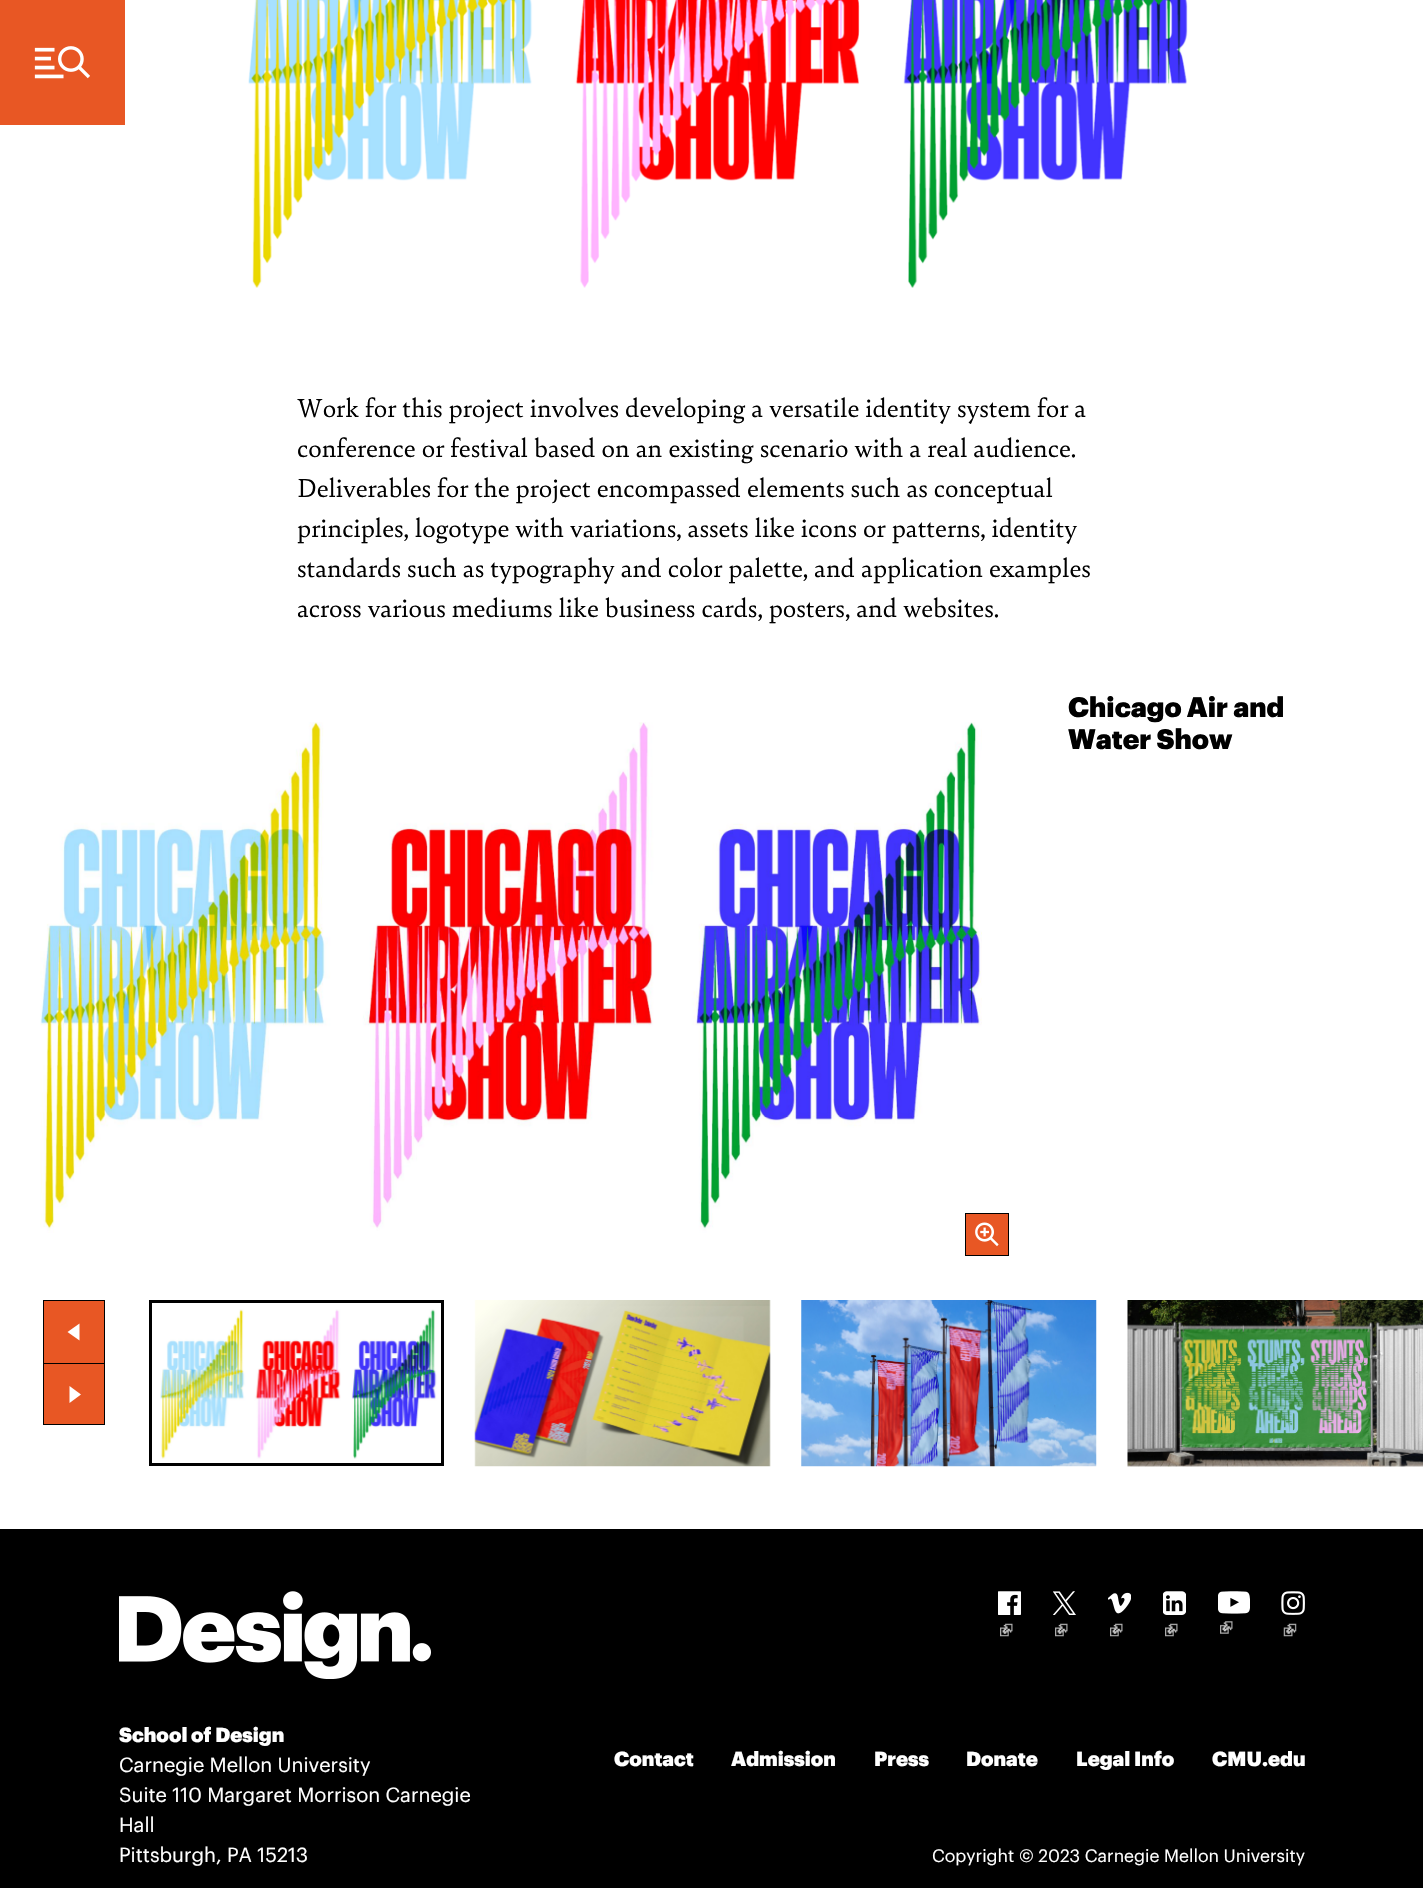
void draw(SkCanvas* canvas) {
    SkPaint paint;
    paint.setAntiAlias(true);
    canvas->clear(0xFFFFFFFF);
    paint.setColor(0xFFE85724);
    canvas->drawRect(SkRect::MakeXYWH(0, 0, 125, 125), paint);
    canvas->drawImageRect(SkImages::DeferredFromEncodedData(SkData::MakeFromFileName("img1.png")), SkRect::MakeXYWH(34, 46, 56, 33), SkSamplingOptions());
    canvas->drawImageRect(SkImages::DeferredFromEncodedData(SkData::MakeFromFileName("img2.png")), SkRect::MakeXYWH(248, 0, 940, 288), SkSamplingOptions());
    SkFont font1(fontMgr->matchFamilyStyle("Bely", SkFontStyle::Normal()), 27.5f);
    font1.setSubpixel(true);
    paint.setColor(0xFF000000);
    canvas->drawString("Work for this project involves developing a versatile identity system for a", 297, 417, font1, paint);
    canvas->drawString("conference or festival based on an existing scenario with a real audience.", 297, 457, font1, paint);
    canvas->drawString("Deliverables for the project encompassed elements such as conceptual", 297, 497, font1, paint);
    canvas->drawString("principles, logotype with variations, assets like icons or patterns, identity", 297, 537, font1, paint);
    canvas->drawString("standards such as typography and color palette, and application examples", 297, 577, font1, paint);
    canvas->drawString("across various mediums like business cards, posters, and websites.", 297, 617, font1, paint);
    canvas->drawImageRect(SkImages::DeferredFromEncodedData(SkData::MakeFromFileName("img3.png")), SkRect::MakeXYWH(40, 722, 942, 511), SkSamplingOptions());
    paint.setColor(0xFFE85724);
    canvas->drawRect(SkRect::MakeXYWH(966, 1214, 42, 41), paint);
    canvas->drawImageRect(SkImages::DeferredFromEncodedData(SkData::MakeFromFileName("img4.png")), SkRect::MakeXYWH(975, 1222, 24, 25), SkSamplingOptions());
    paint.setStyle(SkPaint::kStroke_Style);
    paint.setStrokeWidth(1);
    paint.setColor(0xFF000000);
    canvas->drawRect(SkRect::MakeXYWH(965.5f, 1213.5f, 43, 42), paint);
    SkFont font2(fontMgr->matchFamilyStyle("Graphik", SkFontStyle(800, SkFontStyle::kNormal_Width, SkFontStyle::kUpright_Slant)), 27.5f);
    font2.setSubpixel(true);
    paint.setStyle(SkPaint::kFill_Style);
    canvas->drawString("Chicago Air and", 1068, 717, font2, paint);
    canvas->drawString("Water Show", 1068, 749, font2, paint);
    paint.setColor(0xFFE85724);
    canvas->drawRect(SkRect::MakeXYWH(44, 1301, 60, 62), paint);
    paint.setColor(0xFFFFFFFF);
    canvas->drawPath(SkPathBuilder().moveTo(67.5f, 1332).lineTo(79.5f, 1323.5f).lineTo(79.5f, 1340.5f).close().detach(), paint);
    paint.setColor(0xFF000000);
    canvas->drawRect(SkRect::MakeXYWH(43, 1300, 62, 1), paint);
    canvas->drawRect(SkRect::MakeXYWH(104, 1300, 1, 63), paint);
    canvas->drawRect(SkRect::MakeXYWH(43, 1300, 1, 63), paint);
    paint.setColor(0xFFE85724);
    canvas->drawRect(SkRect::MakeXYWH(44, 1364, 60, 60), paint);
    paint.setColor(0xFFFFFFFF);
    canvas->drawPath(SkPathBuilder().moveTo(81, 1394.5f).lineTo(69.5f, 1386).lineTo(69.5f, 1403).close().detach(), paint);
    paint.setStyle(SkPaint::kStroke_Style);
    paint.setColor(0xFF000000);
    canvas->drawRect(SkRect::MakeXYWH(43.5f, 1363.5f, 61, 61), paint);
    canvas->drawImageRect(SkImages::DeferredFromEncodedData(SkData::MakeFromFileName("img5.png")), SkRect::MakeXYWH(160, 1309, 277, 150), SkSamplingOptions());
    paint.setStrokeWidth(3);
    canvas->drawRect(SkRect::MakeXYWH(150.5f, 1301.5f, 292, 163), paint);
    canvas->drawImageRect(SkImages::DeferredFromEncodedData(SkData::MakeFromFileName("img6.png")), SkRect::MakeXYWH(474, 1300, 297, 167), SkSamplingOptions());
    canvas->drawImageRect(SkImages::DeferredFromEncodedData(SkData::MakeFromFileName("img7.png")), SkRect::MakeXYWH(801, 1300, 296, 167), SkSamplingOptions());
    canvas->drawImageRect(SkImages::DeferredFromEncodedData(SkData::MakeFromFileName("img8.png")), SkRect::MakeXYWH(1127, 1300, 296, 167), SkSamplingOptions());
    paint.setStyle(SkPaint::kFill_Style);
    canvas->drawRect(SkRect::MakeXYWH(0, 1529, 1423, 359), paint);
    canvas->drawImageRect(SkImages::DeferredFromEncodedData(SkData::MakeFromFileName("img9.png")), SkRect::MakeXYWH(119, 1591, 312, 88), SkSamplingOptions());
    SkFont font3(fontMgr->matchFamilyStyle("Graphik", SkFontStyle(800, SkFontStyle::kNormal_Width, SkFontStyle::kUpright_Slant)), 20);
    font3.setSubpixel(true);
    paint.setColor(0xFFFFFFFF);
    canvas->drawString("School of Design", 119, 1742, font3, paint);
    SkFont font4(fontMgr->matchFamilyStyle("Graphik", SkFontStyle::Normal()), 20);
    font4.setSubpixel(true);
    canvas->drawString("Carnegie Mellon University", 119, 1772, font4, paint);
    canvas->drawString("Suite 110 Margaret Morrison Carnegie", 119, 1802, font4, paint);
    canvas->drawString("Hall", 119, 1832, font4, paint);
    canvas->drawString("Pittsburgh, PA 15213", 119, 1862, font4, paint);
    canvas->drawImageRect(SkImages::DeferredFromEncodedData(SkData::MakeFromFileName("img10.png")), SkRect::MakeXYWH(998, 1591, 23, 24), SkSamplingOptions());
    canvas->drawImageRect(SkImages::DeferredFromEncodedData(SkData::MakeFromFileName("img11.png")), SkRect::MakeXYWH(1000, 1623, 13, 14), SkSamplingOptions());
    canvas->drawImageRect(SkImages::DeferredFromEncodedData(SkData::MakeFromFileName("img12.png")), SkRect::MakeXYWH(1053, 1591, 23, 24), SkSamplingOptions());
    canvas->drawImageRect(SkImages::DeferredFromEncodedData(SkData::MakeFromFileName("img11.png")), SkRect::MakeXYWH(1055, 1623, 13, 14), SkSamplingOptions());
    canvas->drawImageRect(SkImages::DeferredFromEncodedData(SkData::MakeFromFileName("img13.png")), SkRect::MakeXYWH(1108, 1592, 23, 22), SkSamplingOptions());
    canvas->drawImageRect(SkImages::DeferredFromEncodedData(SkData::MakeFromFileName("img11.png")), SkRect::MakeXYWH(1110, 1623, 13, 14), SkSamplingOptions());
    canvas->drawImageRect(SkImages::DeferredFromEncodedData(SkData::MakeFromFileName("img14.png")), SkRect::MakeXYWH(1163, 1591, 23, 24), SkSamplingOptions());
    canvas->drawImageRect(SkImages::DeferredFromEncodedData(SkData::MakeFromFileName("img11.png")), SkRect::MakeXYWH(1165, 1623, 13, 14), SkSamplingOptions());
    canvas->drawImageRect(SkImages::DeferredFromEncodedData(SkData::MakeFromFileName("img15.png")), SkRect::MakeXYWH(1218, 1591, 32, 23), SkSamplingOptions());
    canvas->drawImageRect(SkImages::DeferredFromEncodedData(SkData::MakeFromFileName("img16.png")), SkRect::MakeXYWH(1220, 1621, 13, 13), SkSamplingOptions());
    canvas->drawImageRect(SkImages::DeferredFromEncodedData(SkData::MakeFromFileName("img17.png")), SkRect::MakeXYWH(1281, 1591, 24, 24), SkSamplingOptions());
    canvas->drawImageRect(SkImages::DeferredFromEncodedData(SkData::MakeFromFileName("img18.png")), SkRect::MakeXYWH(1283, 1623, 14, 14), SkSamplingOptions());
    canvas->drawString("Contact", 614, 1766, font3, paint);
    canvas->drawString("Admission", 731, 1766, font3, paint);
    canvas->drawString("Press", 874, 1766, font3, paint);
    canvas->drawString("Donate", 966, 1766, font3, paint);
    canvas->drawString("Legal Info", 1076, 1766, font3, paint);
    canvas->drawString("CMU.edu", 1212, 1766, font3, paint);
    SkFont font5(fontMgr->matchFamilyStyle("Graphik", SkFontStyle::Normal()), 17.5f);
    font5.setSubpixel(true);
    canvas->drawString("Copyright © 2023 Carnegie Mellon University", 932, 1862, font5, paint);
}
